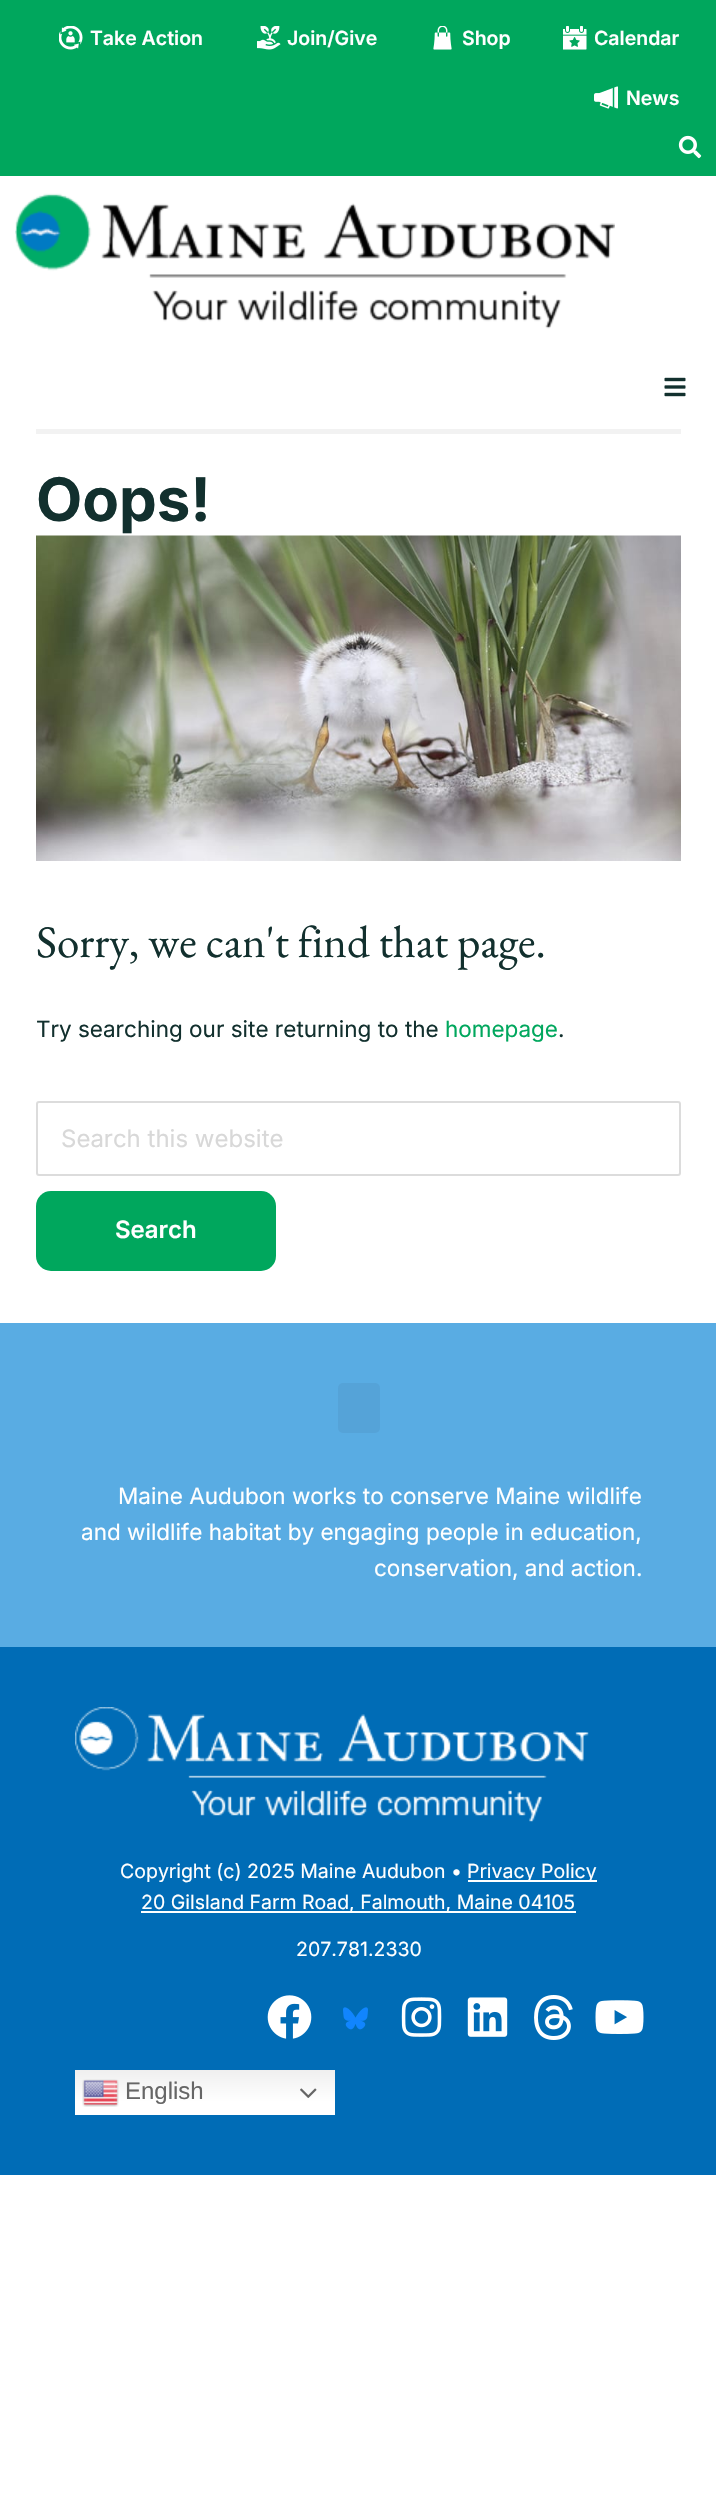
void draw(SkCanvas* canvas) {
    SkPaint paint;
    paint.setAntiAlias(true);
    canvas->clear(0xFFFFFFFF);
    paint.setColor(0xFF00A75D);
    canvas->drawRect(SkRect::MakeXYWH(0, 0, 716, 176), paint);
    canvas->drawImageRect(SkImages::DeferredFromEncodedData(SkData::MakeFromFileName("img1.png")), SkRect::MakeXYWH(59, 26, 24, 24), SkSamplingOptions());
    SkFont font1(fontMgr->matchFamilyStyle("Inter", SkFontStyle(600, SkFontStyle::kNormal_Width, SkFontStyle::kUpright_Slant)), 19.5f);
    font1.setSubpixel(true);
    paint.setColor(0xFFFFFFFF);
    canvas->drawString("Take Action", 90, 45, font1, paint);
    canvas->drawImageRect(SkImages::DeferredFromEncodedData(SkData::MakeFromFileName("img2.png")), SkRect::MakeXYWH(257, 26, 24, 24), SkSamplingOptions());
    canvas->drawString("Join/Give", 287, 45, font1, paint);
    canvas->drawImageRect(SkImages::DeferredFromEncodedData(SkData::MakeFromFileName("img3.png")), SkRect::MakeXYWH(433, 26, 19, 24), SkSamplingOptions());
    canvas->drawString("Shop", 462, 45, font1, paint);
    canvas->drawImageRect(SkImages::DeferredFromEncodedData(SkData::MakeFromFileName("img4.png")), SkRect::MakeXYWH(563, 26, 24, 24), SkSamplingOptions());
    canvas->drawString("Calendar", 594, 45, font1, paint);
    canvas->drawImageRect(SkImages::DeferredFromEncodedData(SkData::MakeFromFileName("img5.png")), SkRect::MakeXYWH(594, 86, 24, 23), SkSamplingOptions());
    canvas->drawString("News", 626, 105, font1, paint);
    canvas->drawImageRect(SkImages::DeferredFromEncodedData(SkData::MakeFromFileName("img6.png")), SkRect::MakeXYWH(678, 135, 24, 24), SkSamplingOptions());
    canvas->drawImageRect(SkImages::DeferredFromEncodedData(SkData::MakeFromFileName("img7.png")), SkRect::MakeXYWH(15, 193, 600, 136), SkSamplingOptions());
    canvas->drawImageRect(SkImages::DeferredFromEncodedData(SkData::MakeFromFileName("img8.png")), SkRect::MakeXYWH(664, 377, 22, 20), SkSamplingOptions());
    paint.setColor(0xFFF2F2F2);
    canvas->drawRect(SkRect::MakeXYWH(36, 429, 645, 5), paint);
    SkFont font2(fontMgr->matchFamilyStyle("Inter", SkFontStyle::Bold()), 60);
    font2.setSubpixel(true);
    paint.setColor(0xFF12302E);
    canvas->drawString("Oops!", 36, 521, font2, paint);
    canvas->drawImageRect(SkImages::DeferredFromEncodedData(SkData::MakeFromFileName("img9.png")), SkRect::MakeXYWH(36, 535, 645, 326), SkSamplingOptions());
    SkFont font3(fontMgr->matchFamilyStyle("EB Garamond", SkFontStyle::Normal()), 45);
    font3.setSubpixel(true);
    canvas->drawString("Sorry, we can't find that page.", 36, 957, font3, paint);
    SkFont font4(fontMgr->matchFamilyStyle("Inter", SkFontStyle::Normal()), 22.5f);
    font4.setSubpixel(true);
    canvas->drawString("Try searching our site returning to the", 36, 1037, font4, paint);
    paint.setColor(0xFF00A75D);
    canvas->drawString("homepage", 445, 1037, font4, paint);
    paint.setColor(0xFF12302E);
    canvas->drawString(".", 558, 1037, font4, paint);
    paint.setStyle(SkPaint::kStroke_Style);
    paint.setStrokeWidth(2);
    paint.setColor(0xFFDCDCDC);
    canvas->drawRoundRect(SkRect::MakeXYWH(37, 1102, 643, 73), 2, 2, paint);
    SkFont font5(fontMgr->matchFamilyStyle("Inter", SkFontStyle::Normal()), 24);
    font5.setSubpixel(true);
    paint.setStyle(SkPaint::kFill_Style);
    paint.setColor(0xFFD8D8D8);
    canvas->drawString("Search this website", 61, 1147, font5, paint);
    paint.setColor(0xFF00A75D);
    canvas->drawRoundRect(SkRect::MakeXYWH(36, 1191, 240, 80), 15, 15, paint);
    SkFont font6(fontMgr->matchFamilyStyle("Inter", SkFontStyle(600, SkFontStyle::kNormal_Width, SkFontStyle::kUpright_Slant)), 24);
    font6.setSubpixel(true);
    paint.setColor(0xFFFFFFFF);
    canvas->drawString("Search", 115, 1238, font6, paint);
    paint.setColor(0xFF59ACE3);
    canvas->drawRect(SkRect::MakeXYWH(0, 1323, 716, 324), paint);
    paint.setColor(0xFF55A3D8);
    canvas->drawRoundRect(SkRect::MakeXYWH(338, 1383, 42, 50), 5, 5, paint);
    paint.setColor(0xFFFFFFFF);
    canvas->drawString("Maine Audubon works to conserve Maine wildlife", 118, 1504, font4, paint);
    canvas->drawString("and wildlife habitat by engaging people in education,", 81, 1540, font4, paint);
    canvas->drawString("conservation, and action.", 374, 1576, font4, paint);
    paint.setColor(0xFF006CB6);
    canvas->drawRect(SkRect::MakeXYWH(0, 1647, 716, 528), paint);
    canvas->drawImageRect(SkImages::DeferredFromEncodedData(SkData::MakeFromFileName("img10.png")), SkRect::MakeXYWH(75, 1707, 514, 115), SkSamplingOptions());
    SkFont font7(fontMgr->matchFamilyStyle("Inter", SkFontStyle::Normal()), 19.5f);
    font7.setSubpixel(true);
    paint.setColor(0xFFFFFFFF);
    canvas->drawString("Copyright (c) 2025 Maine Audubon •", 120, 1878, font7, paint);
    canvas->drawRect(SkRect::MakeXYWH(468, 1880, 129, 2), paint);
    canvas->drawString("Privacy Policy", 467, 1878, font7, paint);
    canvas->drawRect(SkRect::MakeXYWH(141, 1911, 435, 2), paint);
    canvas->drawString("20 Gilsland Farm Road, Falmouth, Maine 04105", 141, 1909, font7, paint);
    canvas->drawString("207.781.2330", 296, 1956, font7, paint);
    canvas->drawImageRect(SkImages::DeferredFromEncodedData(SkData::MakeFromFileName("img11.png")), SkRect::MakeXYWH(267, 1995, 45, 44), SkSamplingOptions());
    canvas->drawImageRect(SkImages::DeferredFromEncodedData(SkData::MakeFromFileName("img12.png")), SkRect::MakeXYWH(343, 2007, 25, 23), SkSamplingOptions());
    canvas->drawImageRect(SkImages::DeferredFromEncodedData(SkData::MakeFromFileName("img13.png")), SkRect::MakeXYWH(401, 1997, 41, 40), SkSamplingOptions());
    canvas->drawImageRect(SkImages::DeferredFromEncodedData(SkData::MakeFromFileName("img14.png")), SkRect::MakeXYWH(467, 1997, 41, 40), SkSamplingOptions());
    canvas->drawImageRect(SkImages::DeferredFromEncodedData(SkData::MakeFromFileName("img15.png")), SkRect::MakeXYWH(534, 1995, 39, 45), SkSamplingOptions());
    canvas->drawImageRect(SkImages::DeferredFromEncodedData(SkData::MakeFromFileName("img16.png")), SkRect::MakeXYWH(595, 2000, 49, 34), SkSamplingOptions());
    {
        const SkColor colors[] = {0xFFEFEFEF, 0xFFFFFFFF};
        const float stops[] = {0, 0.7f};
        const SkPoint ends[] = {{205, 2070}, {205, 2115}};
        paint.setShader(SkGradientShader::MakeLinear(ends, colors, stops, 2, SkTileMode::kClamp));
        paint.setAlpha(255);
    }
    canvas->drawRect(SkRect::MakeXYWH(75, 2070, 260, 45), paint);
    canvas->drawImageRect(SkImages::DeferredFromEncodedData(SkData::MakeFromFileName("img17.png")), SkRect::MakeXYWH(82, 2079, 37, 28), SkSamplingOptions());
    SkFont font8(fontMgr->matchFamilyStyle("Liberation Sans", SkFontStyle::Normal()), 24);
    font8.setSubpixel(true);
    paint.setShader(nullptr);
    paint.setColor(0xFF666666);
    canvas->drawString("English", 125, 2099, font8, paint);
    canvas->drawImageRect(SkImages::DeferredFromEncodedData(SkData::MakeFromFileName("img18.png")), SkRect::MakeXYWH(300, 2088, 17, 10), SkSamplingOptions());
}
